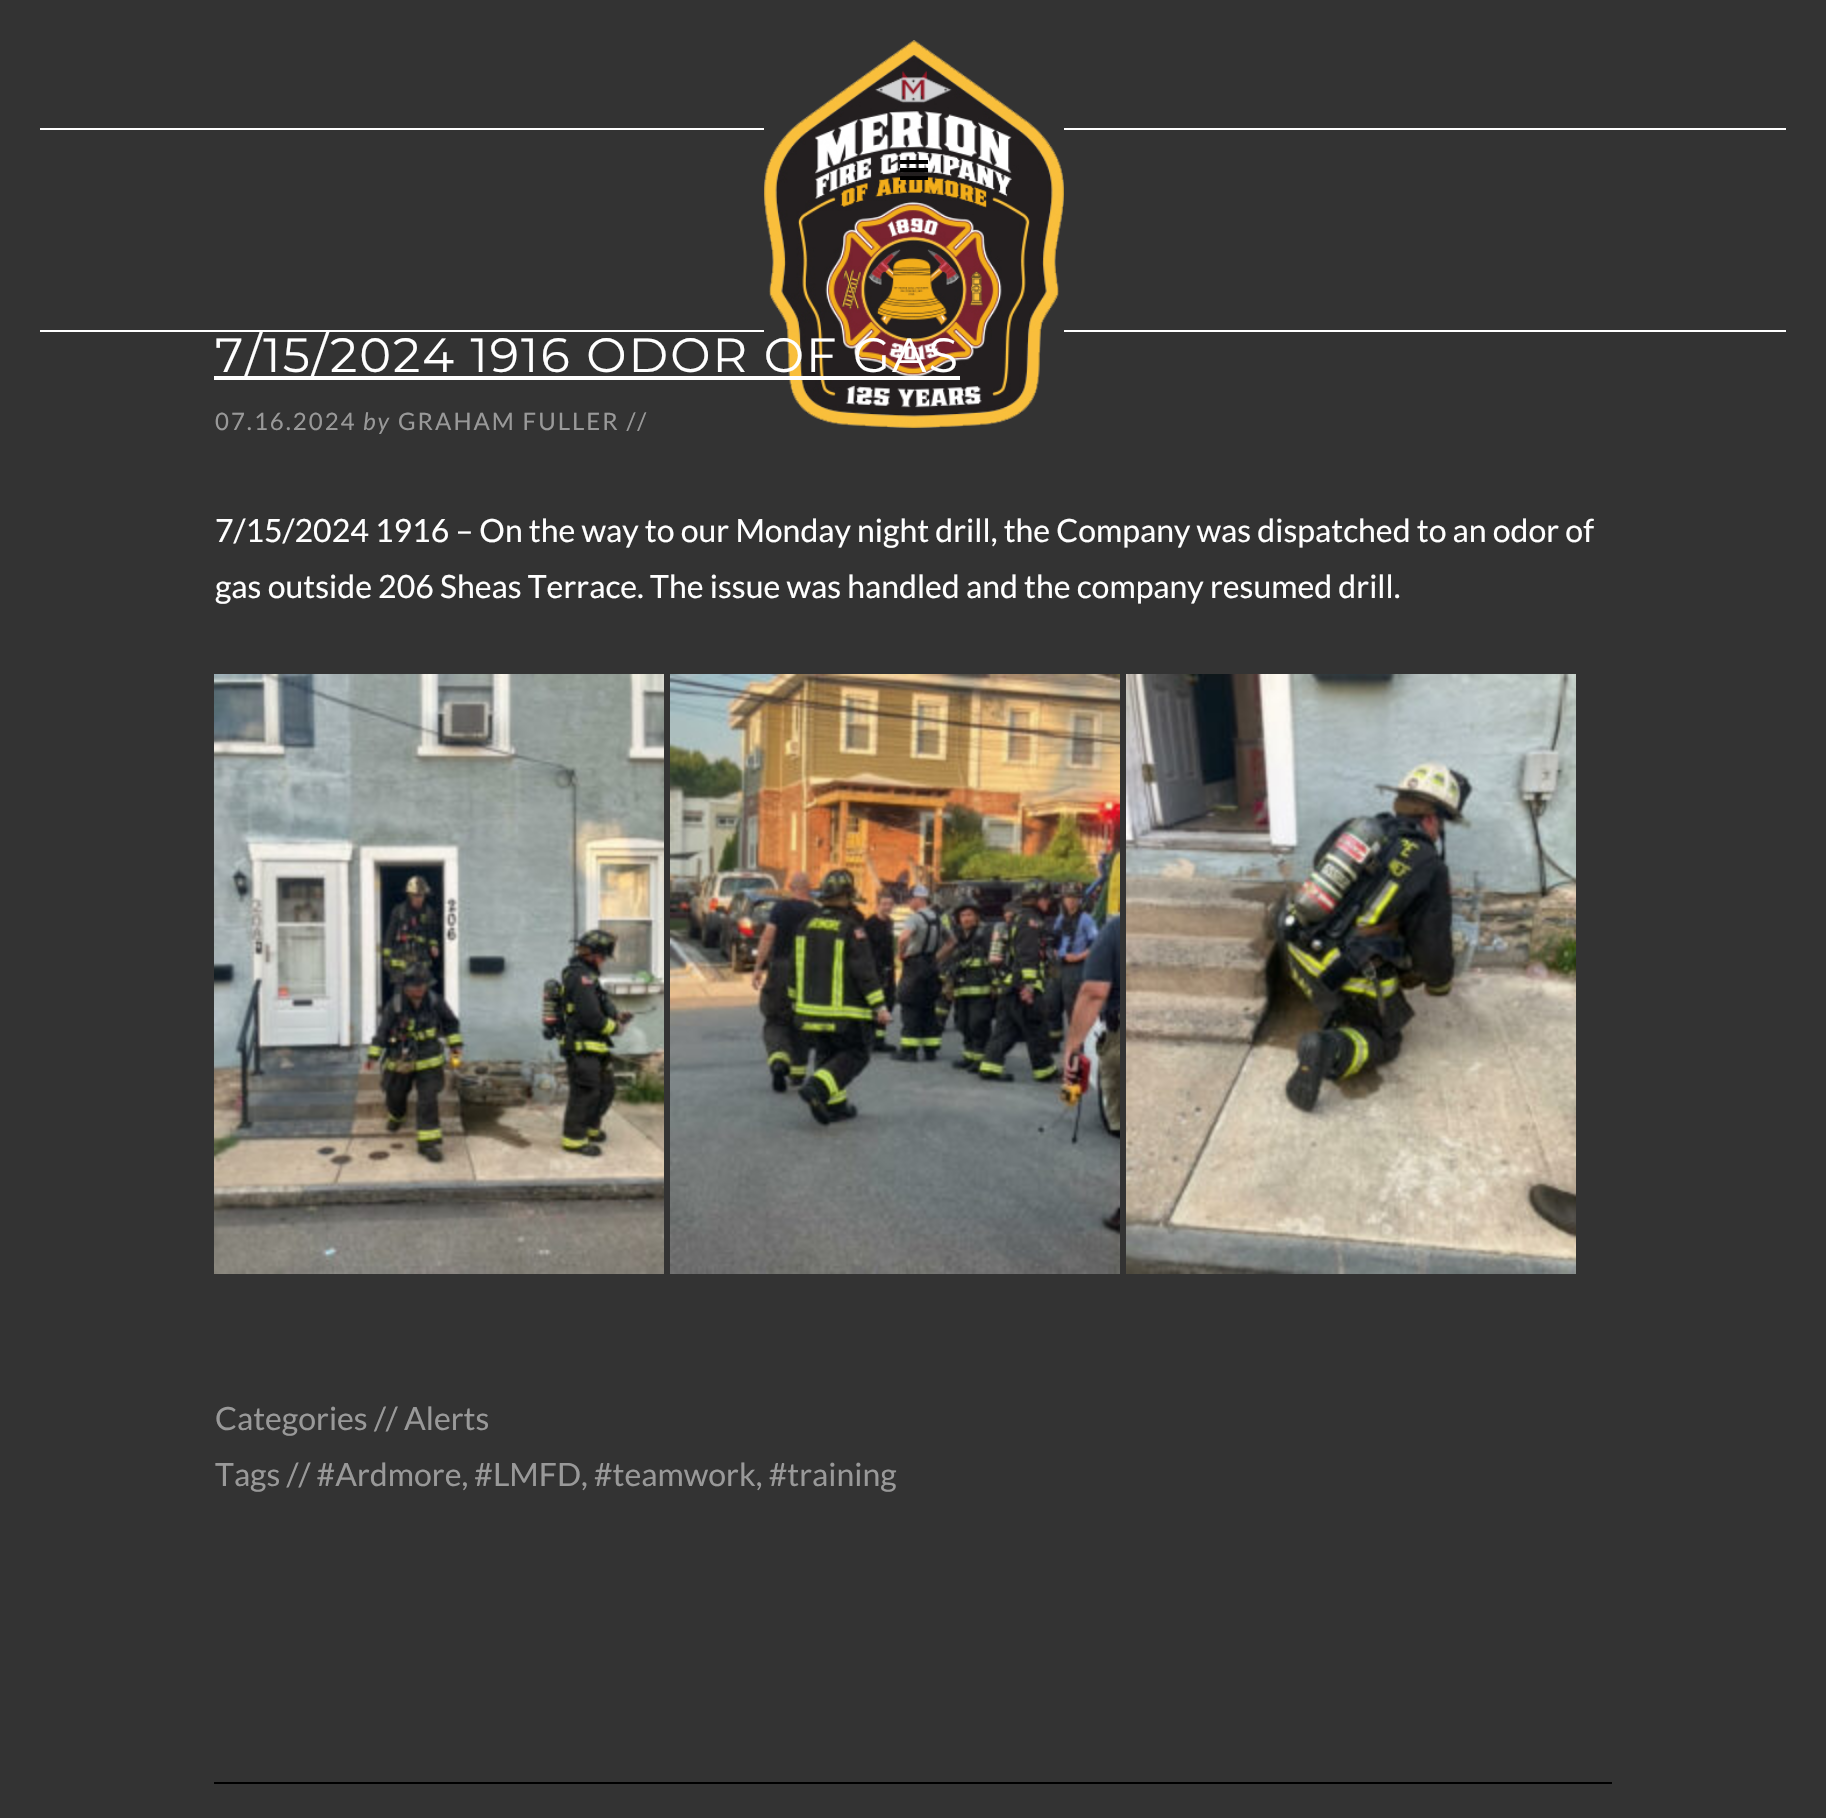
void draw(SkCanvas* canvas) {
    SkPaint paint;
    paint.setAntiAlias(true);
    auto spacedText = [&](const char* s, float x, float y, const SkFont& font, const SkPaint& ink, float letter, float word) {
        std::vector<SkGlyphID> glyphs(font.countText(s, strlen(s), SkTextEncoding::kUTF8));
        std::vector<float> xs(glyphs.size());
        font.textToGlyphs(s, strlen(s), SkTextEncoding::kUTF8, glyphs);
        font.getXPos(glyphs, xs, x);
        float extra = 0;
        for (size_t i = 0; i < glyphs.size(); i++) {
            xs[i] += extra;
            extra += letter + word * (glyphs[i] == font.unicharToGlyph(' '));
        }
        canvas->drawTextBlob(SkTextBlob::MakeFromPosHGlyphs(glyphs, xs, y, font), 0, 0, ink);
    };
    canvas->clear(0xFF333333);
    paint.setColor(0xFFFFFFFF);
    canvas->drawRect(SkRect::MakeXYWH(40, 128, 1746, 2), paint);
    canvas->drawRect(SkRect::MakeXYWH(40, 330, 1746, 2), paint);
    paint.setColor(0xFF333333);
    canvas->drawRect(SkRect::MakeXYWH(764, 128, 300, 204), paint);
    canvas->drawImageRect(SkImages::DeferredFromEncodedData(SkData::MakeFromFileName("img1.png")), SkRect::MakeXYWH(764, 40, 300, 388), SkSamplingOptions());
    canvas->drawImageRect(SkImages::DeferredFromEncodedData(SkData::MakeFromFileName("img2.png")), SkRect::MakeXYWH(900, 160, 28, 20), SkSamplingOptions());
    paint.setColor(0xFFFFFFFF);
    canvas->drawRect(SkRect::MakeXYWH(214, 376, 746, 4), paint);
    SkFont font1(fontMgr->matchFamilyStyle("Montserrat", SkFontStyle(100, SkFontStyle::kNormal_Width, SkFontStyle::kUpright_Slant)), 48);
    font1.setSubpixel(true);
    spacedText("7/15/2024 1916 ODOR OF GAS", 215, 372, font1, paint, 2, 0);
    SkFont font2(fontMgr->matchFamilyStyle("Lato", SkFontStyle::Normal()), 24);
    font2.setSubpixel(true);
    paint.setColor(0xFF999999);
    spacedText("07.16.2024", 215, 430, font2, paint, 2, 0);
    SkFont font3(fontMgr->matchFamilyStyle("Lato", SkFontStyle::Italic()), 24);
    font3.setSubpixel(true);
    spacedText("by", 363, 430, font3, paint, 2, 0);
    spacedText("GRAHAM FULLER //", 398, 430, font2, paint, 2, 0);
    SkFont font4(fontMgr->matchFamilyStyle("Lato", SkFontStyle::Normal()), 32);
    font4.setSubpixel(true);
    paint.setColor(0xFFFFFFFF);
    canvas->drawString("7/15/2024 1916 – On the way to our Monday night drill, the Company was dispatched to an odor of", 215, 542, font4, paint);
    canvas->drawString("gas outside 206 Sheas Terrace. The issue was handled and the company resumed drill.", 215, 598, font4, paint);
    canvas->drawImageRect(SkImages::DeferredFromEncodedData(SkData::MakeFromFileName("img3.png")), SkRect::MakeXYWH(214, 674, 450, 600), SkSamplingOptions());
    canvas->drawImageRect(SkImages::DeferredFromEncodedData(SkData::MakeFromFileName("img4.png")), SkRect::MakeXYWH(670, 674, 450, 600), SkSamplingOptions());
    canvas->drawImageRect(SkImages::DeferredFromEncodedData(SkData::MakeFromFileName("img5.png")), SkRect::MakeXYWH(1126, 674, 450, 600), SkSamplingOptions());
    paint.setColor(0xFF999999);
    canvas->drawString("Categories // Alerts", 215, 1430, font4, paint);
    canvas->drawString("Tags // #Ardmore, #LMFD, #teamwork, #training", 215, 1486, font4, paint);
    paint.setColor(0xFF000000);
    canvas->drawRect(SkRect::MakeXYWH(214, 1782, 1398, 2), paint);
}
